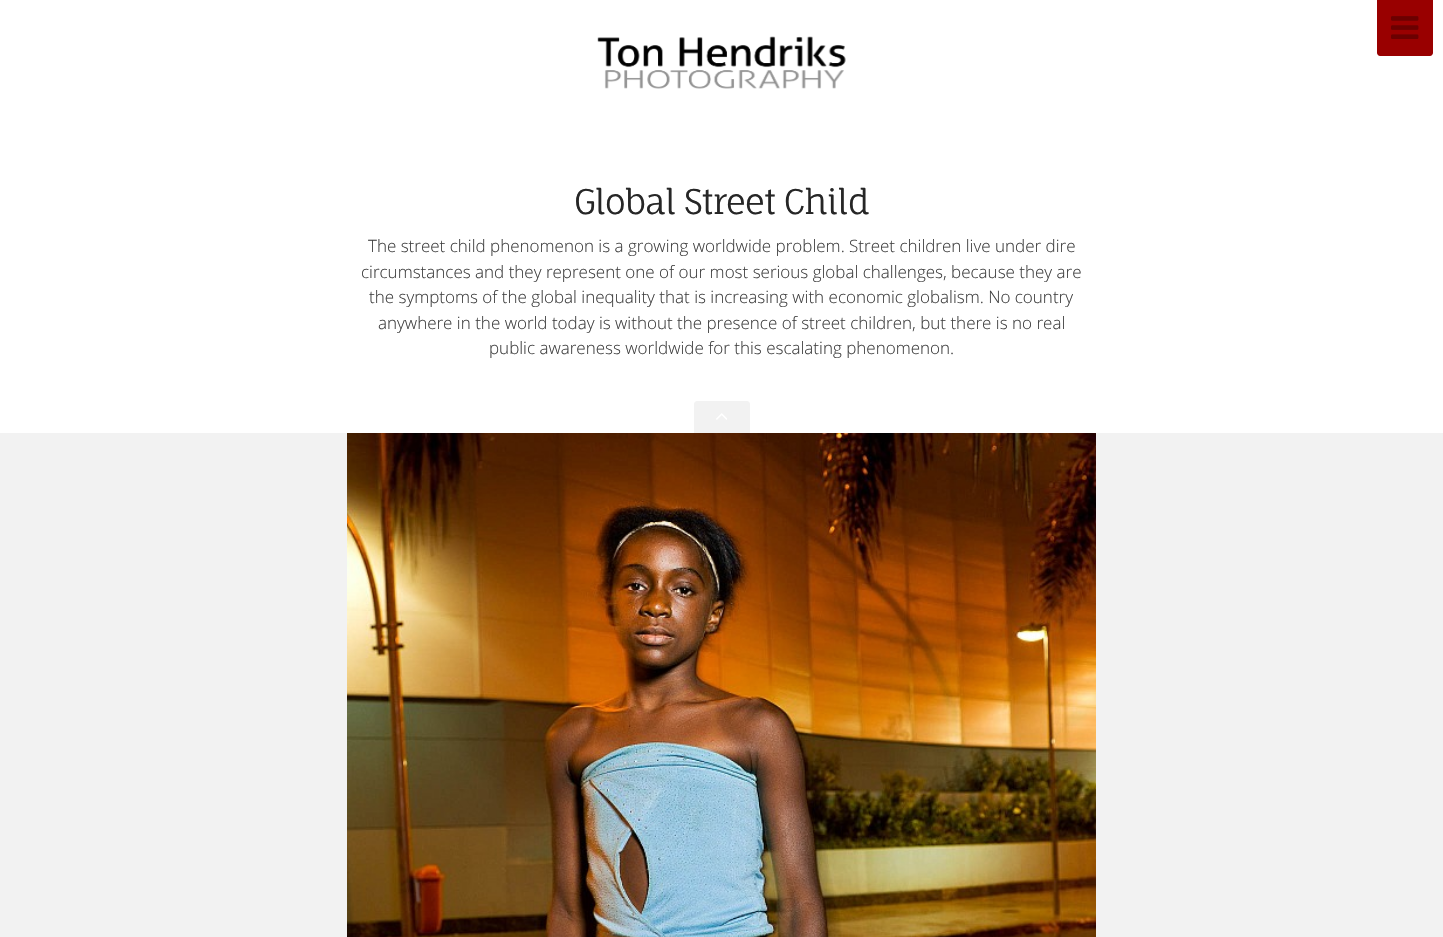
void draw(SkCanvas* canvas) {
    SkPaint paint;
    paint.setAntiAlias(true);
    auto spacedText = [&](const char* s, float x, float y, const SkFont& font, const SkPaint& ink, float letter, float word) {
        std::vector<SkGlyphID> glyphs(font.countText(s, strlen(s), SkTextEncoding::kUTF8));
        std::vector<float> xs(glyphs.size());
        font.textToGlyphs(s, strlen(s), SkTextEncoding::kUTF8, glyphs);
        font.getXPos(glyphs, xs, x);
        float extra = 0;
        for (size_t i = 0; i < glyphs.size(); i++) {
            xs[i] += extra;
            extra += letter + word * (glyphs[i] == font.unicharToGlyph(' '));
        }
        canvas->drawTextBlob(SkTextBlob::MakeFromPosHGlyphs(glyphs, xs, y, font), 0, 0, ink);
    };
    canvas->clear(0xFFFFFFFF);
    paint.setColor(0xFF990000);
    canvas->drawPath(SkPathBuilder().moveTo(1377, 0).lineTo(1433, 0).lineTo(1433, 53).cubicTo(1433, 54.5f, 1431.5f, 56, 1430, 56).lineTo(1380, 56).cubicTo(1378.5f, 56, 1377, 54.5f, 1377, 53).close().detach(), paint);
    canvas->drawImageRect(SkImages::DeferredFromEncodedData(SkData::MakeFromFileName("img1.png")), SkRect::MakeXYWH(1391, 16, 28, 23), SkSamplingOptions());
    canvas->drawImageRect(SkImages::DeferredFromEncodedData(SkData::MakeFromFileName("img2.png")), SkRect::MakeXYWH(597, 36, 249, 53), SkSamplingOptions());
    SkFont font1(fontMgr->matchFamilyStyle("Fauna One", SkFontStyle::Normal()), 34);
    font1.setSubpixel(true);
    paint.setColor(0xFF262626);
    spacedText("Global Street Child", 574, 214, font1, paint, -1, 0);
    SkFont font2(fontMgr->matchFamilyStyle("Open Sans", SkFontStyle(300, SkFontStyle::kNormal_Width, SkFontStyle::kUpright_Slant)), 17);
    font2.setSubpixel(true);
    paint.setColor(0xFF404040);
    canvas->drawString("The street child phenomenon is a growing worldwide problem. Street children live under dire", 368, 252, font2, paint);
    canvas->drawString("circumstances and they represent one of our most serious global challenges, because they are", 361, 278, font2, paint);
    canvas->drawString("the symptoms of the global inequality that is increasing with economic globalism. No country", 369, 303, font2, paint);
    canvas->drawString("anywhere in the world today is without the presence of street children, but there is no real", 378, 329, font2, paint);
    canvas->drawString("public awareness worldwide for this escalating phenomenon.", 489, 354, font2, paint);
    paint.setColor(0xFFF2F2F2);
    canvas->drawPath(SkPathBuilder().moveTo(697, 401).lineTo(747, 401).cubicTo(748.5f, 401, 750, 402.5f, 750, 404).lineTo(750, 433).lineTo(694, 433).lineTo(694, 404).cubicTo(694, 402.5f, 695.5f, 401, 697, 401).close().detach(), paint);
    canvas->drawImageRect(SkImages::DeferredFromEncodedData(SkData::MakeFromFileName("img3.png")), SkRect::MakeXYWH(716, 413, 11, 7), SkSamplingOptions());
    canvas->drawRect(SkRect::MakeXYWH(0, 433, 1443, 504), paint);
    canvas->drawImageRect(SkImages::DeferredFromEncodedData(SkData::MakeFromFileName("img4.png")), SkRect::MakeXYWH(347, 433, 749, 504), SkSamplingOptions());
}
